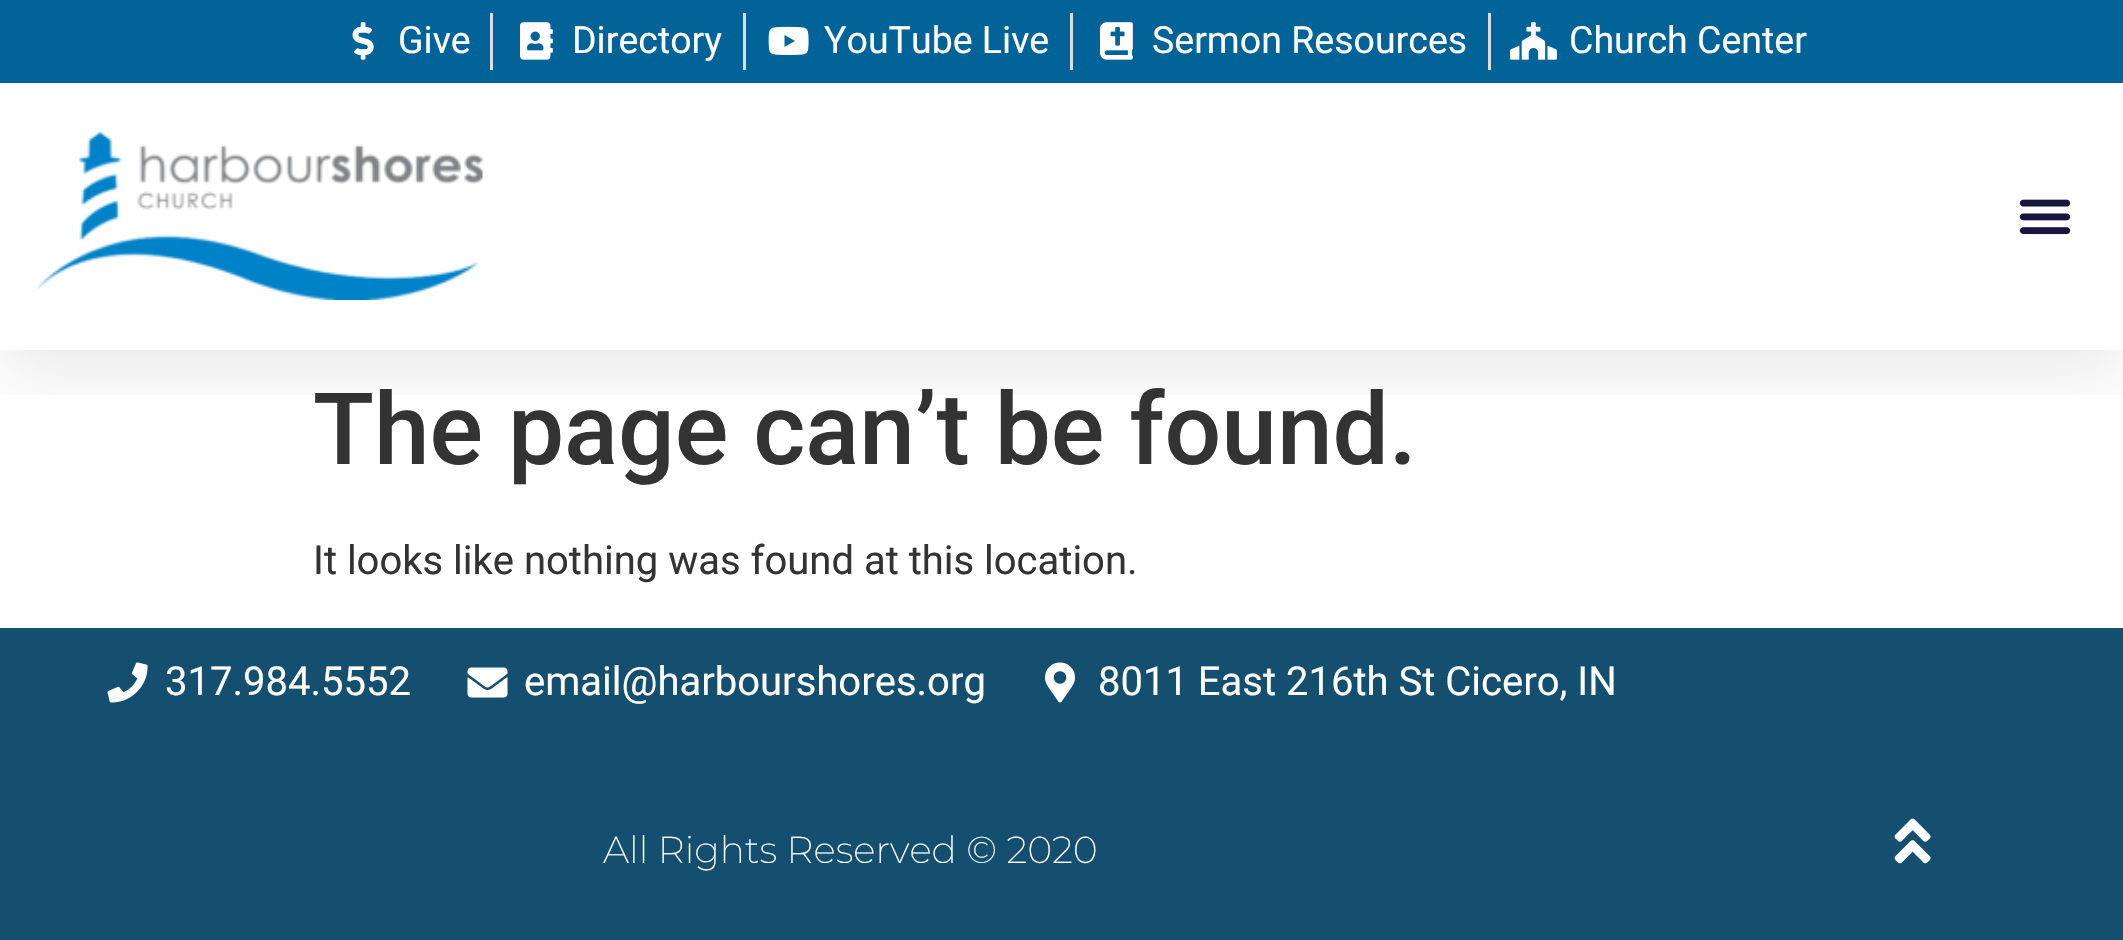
void draw(SkCanvas* canvas) {
    SkPaint paint;
    paint.setAntiAlias(true);
    canvas->clear(0xFFFFFFFF);
    canvas->save();
    canvas->clipRect(SkRect::MakeXYWH(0, 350, 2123, 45));
    paint.setColor(0x1A000000);
    paint.setMaskFilter(SkMaskFilter::MakeBlur(kNormal_SkBlurStyle, 37.5f));
    canvas->drawRect(SkRect::MakeXYWH(0, 13, 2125, 350), paint);
    paint.setMaskFilter(nullptr);
    canvas->restore();
    paint.setColor(0xFF026398);
    canvas->drawRect(SkRect::MakeXYWH(0, 0, 2123, 83), paint);
    canvas->drawImageRect(SkImages::DeferredFromEncodedData(SkData::MakeFromFileName("img1.png")), SkRect::MakeXYWH(352, 22, 22, 38), SkSamplingOptions());
    SkFont font1(fontMgr->matchFamilyStyle("Roboto", SkFontStyle::Normal()), 37.5f);
    font1.setSubpixel(true);
    paint.setColor(0xFFFFFFFF);
    canvas->drawString("Give", 398, 53, font1, paint);
    paint.setColor(0xFFDDDDDD);
    canvas->drawRect(SkRect::MakeXYWH(490, 13, 3, 57), paint);
    canvas->drawImageRect(SkImages::DeferredFromEncodedData(SkData::MakeFromFileName("img2.png")), SkRect::MakeXYWH(520, 22, 33, 38), SkSamplingOptions());
    paint.setColor(0xFFFFFFFF);
    canvas->drawString("Directory", 572, 53, font1, paint);
    paint.setColor(0xFFDDDDDD);
    canvas->drawRect(SkRect::MakeXYWH(743, 13, 3, 57), paint);
    canvas->drawImageRect(SkImages::DeferredFromEncodedData(SkData::MakeFromFileName("img3.png")), SkRect::MakeXYWH(768, 26, 41, 29), SkSamplingOptions());
    paint.setColor(0xFFFFFFFF);
    canvas->drawString("YouTube Live", 824, 53, font1, paint);
    paint.setColor(0xFFDDDDDD);
    canvas->drawRect(SkRect::MakeXYWH(1070, 13, 3, 57), paint);
    canvas->drawImageRect(SkImages::DeferredFromEncodedData(SkData::MakeFromFileName("img4.png")), SkRect::MakeXYWH(1100, 22, 33, 38), SkSamplingOptions());
    paint.setColor(0xFFFFFFFF);
    canvas->drawString("Sermon Resources", 1152, 53, font1, paint);
    paint.setColor(0xFFDDDDDD);
    canvas->drawRect(SkRect::MakeXYWH(1488, 13, 3, 57), paint);
    canvas->drawImageRect(SkImages::DeferredFromEncodedData(SkData::MakeFromFileName("img5.png")), SkRect::MakeXYWH(1510, 22, 47, 38), SkSamplingOptions());
    paint.setColor(0xFFFFFFFF);
    canvas->drawString("Church Center", 1569, 53, font1, paint);
    canvas->drawImageRect(SkImages::DeferredFromEncodedData(SkData::MakeFromFileName("img6.png")), SkRect::MakeXYWH(37, 132, 446, 168), SkSamplingOptions());
    canvas->drawImageRect(SkImages::DeferredFromEncodedData(SkData::MakeFromFileName("img7.png")), SkRect::MakeXYWH(2019, 199, 52, 36), SkSamplingOptions());
    SkFont font2(fontMgr->matchFamilyStyle("Roboto", SkFontStyle(500, SkFontStyle::kNormal_Width, SkFontStyle::kUpright_Slant)), 100);
    font2.setSubpixel(true);
    paint.setColor(0xFF333333);
    canvas->drawString("The page can’t be found.", 313, 464, font2, paint);
    SkFont font3(fontMgr->matchFamilyStyle("Roboto", SkFontStyle::Normal()), 40);
    font3.setSubpixel(true);
    canvas->drawString("It looks like nothing was found at this location.", 313, 574, font3, paint);
    paint.setColor(0xFF144F6F);
    canvas->drawRect(SkRect::MakeXYWH(0, 628, 2123, 312), paint);
    canvas->drawImageRect(SkImages::DeferredFromEncodedData(SkData::MakeFromFileName("img8.png")), SkRect::MakeXYWH(107, 662, 41, 41), SkSamplingOptions());
    paint.setColor(0xFFFFFFFF);
    canvas->drawString("317.984.5552", 165, 695, font3, paint);
    canvas->drawImageRect(SkImages::DeferredFromEncodedData(SkData::MakeFromFileName("img9.png")), SkRect::MakeXYWH(467, 667, 41, 31), SkSamplingOptions());
    canvas->drawString("email@harbourshores.org", 524, 695, font3, paint);
    canvas->drawImageRect(SkImages::DeferredFromEncodedData(SkData::MakeFromFileName("img10.png")), SkRect::MakeXYWH(1045, 662, 30, 41), SkSamplingOptions());
    canvas->drawString("8011 East 216th St Cicero, IN", 1098, 695, font3, paint);
    SkFont font4(fontMgr->matchFamilyStyle("Montserrat", SkFontStyle(200, SkFontStyle::kNormal_Width, SkFontStyle::kUpright_Slant)), 37.5f);
    font4.setSubpixel(true);
    canvas->drawString("All Rights Reserved © 2020", 603, 863, font4, paint);
    canvas->drawImageRect(SkImages::DeferredFromEncodedData(SkData::MakeFromFileName("img11.png")), SkRect::MakeXYWH(1894, 818, 37, 46), SkSamplingOptions());
}
